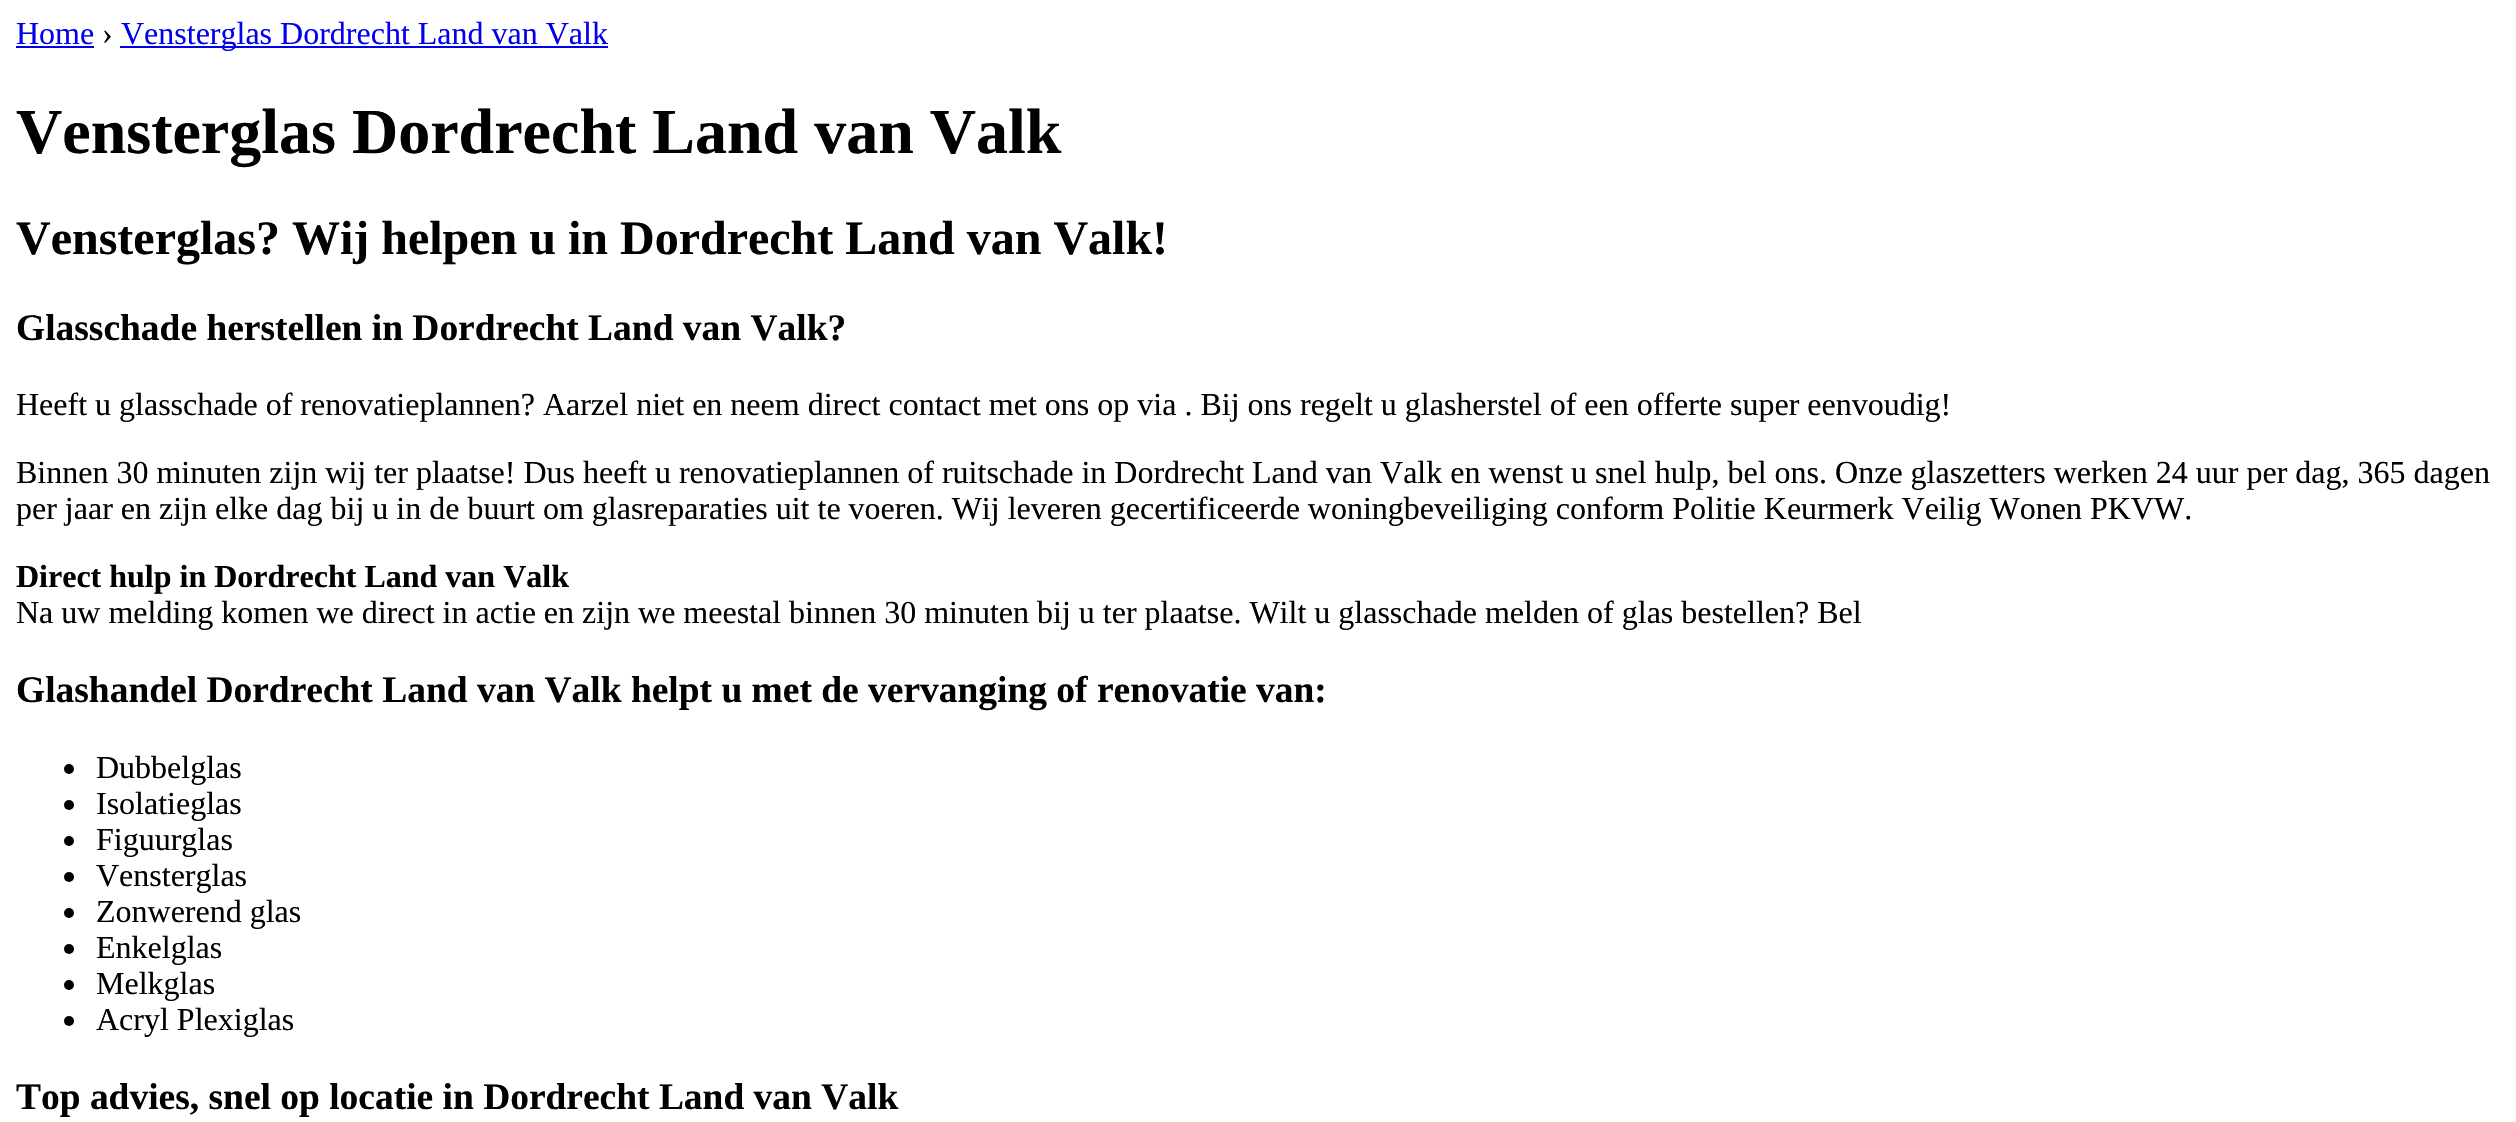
void draw(SkCanvas* canvas) {
    SkPaint paint;
    paint.setAntiAlias(true);
    canvas->clear(0xFFFFFFFF);
    SkFont font1(fontMgr->matchFamilyStyle("Liberation Serif", SkFontStyle::Normal()), 32);
    font1.setSubpixel(true);
    paint.setColor(0xFF0000EE);
    canvas->drawString("Home", 16, 44, font1, paint);
    canvas->drawRect(SkRect::MakeXYWH(16, 46, 78, 2), paint);
    paint.setColor(0xFF000000);
    canvas->drawString("›", 102, 44, font1, paint);
    paint.setColor(0xFF0000EE);
    canvas->drawRect(SkRect::MakeXYWH(120, 46, 488, 2), paint);
    canvas->drawString("Vensterglas Dordrecht Land van Valk", 121, 44, font1, paint);
    SkFont font2(fontMgr->matchFamilyStyle("Liberation Serif", SkFontStyle::Bold()), 64);
    font2.setSubpixel(true);
    paint.setColor(0xFF000000);
    canvas->drawString("Vensterglas Dordrecht Land van Valk", 16, 153, font2, paint);
    SkFont font3(fontMgr->matchFamilyStyle("Liberation Serif", SkFontStyle::Bold()), 48);
    font3.setSubpixel(true);
    canvas->drawString("Vensterglas? Wij helpen u in Dordrecht Land van Valk!", 16, 254, font3, paint);
    SkFont font4(fontMgr->matchFamilyStyle("Liberation Serif", SkFontStyle::Bold()), 37.45f);
    font4.setSubpixel(true);
    canvas->drawString("Glasschade herstellen in Dordrecht Land van Valk?", 16, 340, font4, paint);
    canvas->drawString("Heeft u glasschade of renovatieplannen? Aarzel niet en neem direct contact met ons op via . Bij ons regelt u glasherstel of een offerte super eenvoudig!", 16, 415, font1, paint);
    canvas->drawString("Binnen 30 minuten zijn wij ter plaatse! Dus heeft u renovatieplannen of ruitschade in Dordrecht Land van Valk en wenst u snel hulp, bel ons. Onze glaszetters werken 24 uur per dag, 365 dagen", 16, 483, font1, paint);
    canvas->drawString("per jaar en zijn elke dag bij u in de buurt om glasreparaties uit te voeren. Wij leveren gecertificeerde woningbeveiliging conform Politie Keurmerk Veilig Wonen PKVW.", 16, 519, font1, paint);
    SkFont font5(fontMgr->matchFamilyStyle("Liberation Serif", SkFontStyle::Bold()), 32);
    font5.setSubpixel(true);
    canvas->drawString("Direct hulp in Dordrecht Land van Valk", 16, 587, font5, paint);
    canvas->drawString("Na uw melding komen we direct in actie en zijn we meestal binnen 30 minuten bij u ter plaatse. Wilt u glasschade melden of glas bestellen? Bel", 16, 623, font1, paint);
    canvas->drawString("Glashandel Dordrecht Land van Valk helpt u met de vervanging of renovatie van:", 16, 702, font4, paint);
    canvas->drawCircle(69, 769, 5, paint);
    canvas->drawString("Dubbelglas", 96, 778, font1, paint);
    canvas->drawCircle(69, 805, 5, paint);
    canvas->drawString("Isolatieglas", 96, 814, font1, paint);
    canvas->drawCircle(69, 841, 5, paint);
    canvas->drawString("Figuurglas", 96, 850, font1, paint);
    canvas->drawCircle(69, 877, 5, paint);
    canvas->drawString("Vensterglas", 96, 886, font1, paint);
    canvas->drawCircle(69, 913, 5, paint);
    canvas->drawString("Zonwerend glas", 96, 922, font1, paint);
    canvas->drawCircle(69, 949, 5, paint);
    canvas->drawString("Enkelglas", 96, 958, font1, paint);
    canvas->drawCircle(69, 985, 5, paint);
    canvas->drawString("Melkglas", 96, 994, font1, paint);
    canvas->drawCircle(69, 1021, 5, paint);
    canvas->drawString("Acryl Plexiglas", 96, 1030, font1, paint);
    canvas->drawString("Top advies, snel op locatie in Dordrecht Land van Valk", 16, 1109, font4, paint);
}
